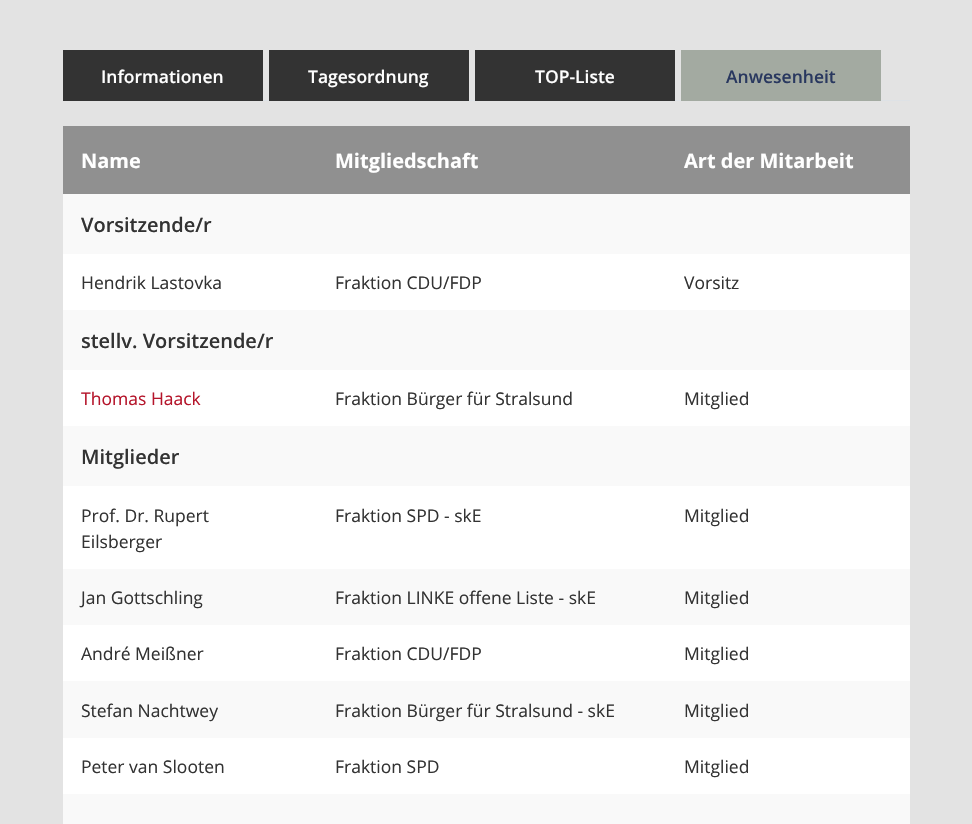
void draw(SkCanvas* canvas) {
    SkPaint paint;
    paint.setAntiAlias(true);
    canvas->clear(0xFFE3E3E3);
    paint.setColor(0xFFDEE2E6);
    canvas->drawRect(SkRect::MakeXYWH(263, 100, 647, 1), paint);
    paint.setColor(0xFF333333);
    canvas->drawRect(SkRect::MakeXYWH(63, 50, 200, 51), paint);
    SkFont font1(fontMgr->matchFamilyStyle("Open Sans", SkFontStyle(600, SkFontStyle::kNormal_Width, SkFontStyle::kUpright_Slant)), 17.5f);
    font1.setSubpixel(true);
    paint.setColor(0xFFFFFFFF);
    canvas->drawString("Informationen", 101, 83, font1, paint);
    paint.setColor(0xFF333333);
    canvas->drawRect(SkRect::MakeXYWH(269, 50, 200, 51), paint);
    paint.setColor(0xFFFFFFFF);
    canvas->drawString("Tagesordnung", 308, 83, font1, paint);
    paint.setColor(0xFF333333);
    canvas->drawRect(SkRect::MakeXYWH(475, 50, 200, 51), paint);
    paint.setColor(0xFFFFFFFF);
    canvas->drawString("TOP-Liste", 535, 83, font1, paint);
    paint.setColor(0xFFA3AAA1);
    canvas->drawRect(SkRect::MakeXYWH(681, 50, 200, 51), paint);
    paint.setColor(0xFF29385F);
    canvas->drawString("Anwesenheit", 726, 83, font1, paint);
    paint.setColor(0xFF909090);
    canvas->drawRect(SkRect::MakeXYWH(63, 126, 847, 68), paint);
    SkFont font2(fontMgr->matchFamilyStyle("Open Sans", SkFontStyle::Bold()), 20);
    font2.setSubpixel(true);
    paint.setColor(0xFFFFFFFF);
    canvas->drawString("Name", 81, 168, font2, paint);
    canvas->drawString("Mitgliedschaft", 335, 168, font2, paint);
    canvas->drawString("Art der Mitarbeit", 684, 168, font2, paint);
    paint.setColor(0xFFF9F9F9);
    canvas->drawRect(SkRect::MakeXYWH(63, 194, 847, 60), paint);
    SkFont font3(fontMgr->matchFamilyStyle("Open Sans", SkFontStyle(600, SkFontStyle::kNormal_Width, SkFontStyle::kUpright_Slant)), 20);
    font3.setSubpixel(true);
    paint.setColor(0xFF333333);
    canvas->drawString("Vorsitzende/r", 81, 232, font3, paint);
    paint.setColor(0xFFFFFFFF);
    canvas->drawRect(SkRect::MakeXYWH(63, 254, 847, 56), paint);
    SkFont font4(fontMgr->matchFamilyStyle("Open Sans", SkFontStyle::Normal()), 17.5f);
    font4.setSubpixel(true);
    paint.setColor(0xFF333333);
    canvas->drawString("Hendrik Lastovka", 81, 289, font4, paint);
    canvas->drawString("Fraktion CDU/FDP", 335, 289, font4, paint);
    canvas->drawString("Vorsitz", 684, 289, font4, paint);
    paint.setColor(0xFFF9F9F9);
    canvas->drawRect(SkRect::MakeXYWH(63, 310, 847, 60), paint);
    paint.setColor(0xFF333333);
    canvas->drawString("stellv. Vorsitzende/r", 81, 348, font3, paint);
    paint.setColor(0xFFFFFFFF);
    canvas->drawRect(SkRect::MakeXYWH(63, 370, 847, 56), paint);
    paint.setColor(0xFFB5152B);
    canvas->drawString("Thomas Haack", 81, 405, font4, paint);
    paint.setColor(0xFF333333);
    canvas->drawString("Fraktion Bürger für Stralsund", 335, 405, font4, paint);
    canvas->drawString("Mitglied", 684, 405, font4, paint);
    paint.setColor(0xFFF9F9F9);
    canvas->drawRect(SkRect::MakeXYWH(63, 426, 847, 60), paint);
    paint.setColor(0xFF333333);
    canvas->drawString("Mitglieder", 81, 464, font3, paint);
    paint.setColor(0xFFFFFFFF);
    canvas->drawRect(SkRect::MakeXYWH(63, 486, 847, 83), paint);
    paint.setColor(0xFF333333);
    canvas->drawString("Prof. Dr. Rupert", 81, 522, font4, paint);
    canvas->drawString("Eilsberger", 81, 548, font4, paint);
    canvas->drawString("Fraktion SPD - skE", 335, 522, font4, paint);
    canvas->drawString("Mitglied", 684, 522, font4, paint);
    paint.setColor(0xFFF9F9F9);
    canvas->drawRect(SkRect::MakeXYWH(63, 569, 847, 56), paint);
    paint.setColor(0xFF333333);
    canvas->drawString("Jan Gottschling", 81, 604, font4, paint);
    canvas->drawString("Fraktion LINKE offene Liste - skE", 335, 604, font4, paint);
    canvas->drawString("Mitglied", 684, 604, font4, paint);
    paint.setColor(0xFFFFFFFF);
    canvas->drawRect(SkRect::MakeXYWH(63, 625, 847, 56), paint);
    paint.setColor(0xFF333333);
    canvas->drawString("André Meißner", 81, 660, font4, paint);
    canvas->drawString("Fraktion CDU/FDP", 335, 660, font4, paint);
    canvas->drawString("Mitglied", 684, 660, font4, paint);
    paint.setColor(0xFFF9F9F9);
    canvas->drawRect(SkRect::MakeXYWH(63, 681, 847, 57), paint);
    paint.setColor(0xFF333333);
    canvas->drawString("Stefan Nachtwey", 81, 717, font4, paint);
    canvas->drawString("Fraktion Bürger für Stralsund - skE", 335, 717, font4, paint);
    canvas->drawString("Mitglied", 684, 717, font4, paint);
    paint.setColor(0xFFFFFFFF);
    canvas->drawRect(SkRect::MakeXYWH(63, 738, 847, 56), paint);
    paint.setColor(0xFF333333);
    canvas->drawString("Peter van Slooten", 81, 773, font4, paint);
    canvas->drawString("Fraktion SPD", 335, 773, font4, paint);
    canvas->drawString("Mitglied", 684, 773, font4, paint);
    paint.setColor(0xFFF9F9F9);
    canvas->drawRect(SkRect::MakeXYWH(63, 794, 847, 30), paint);
}
